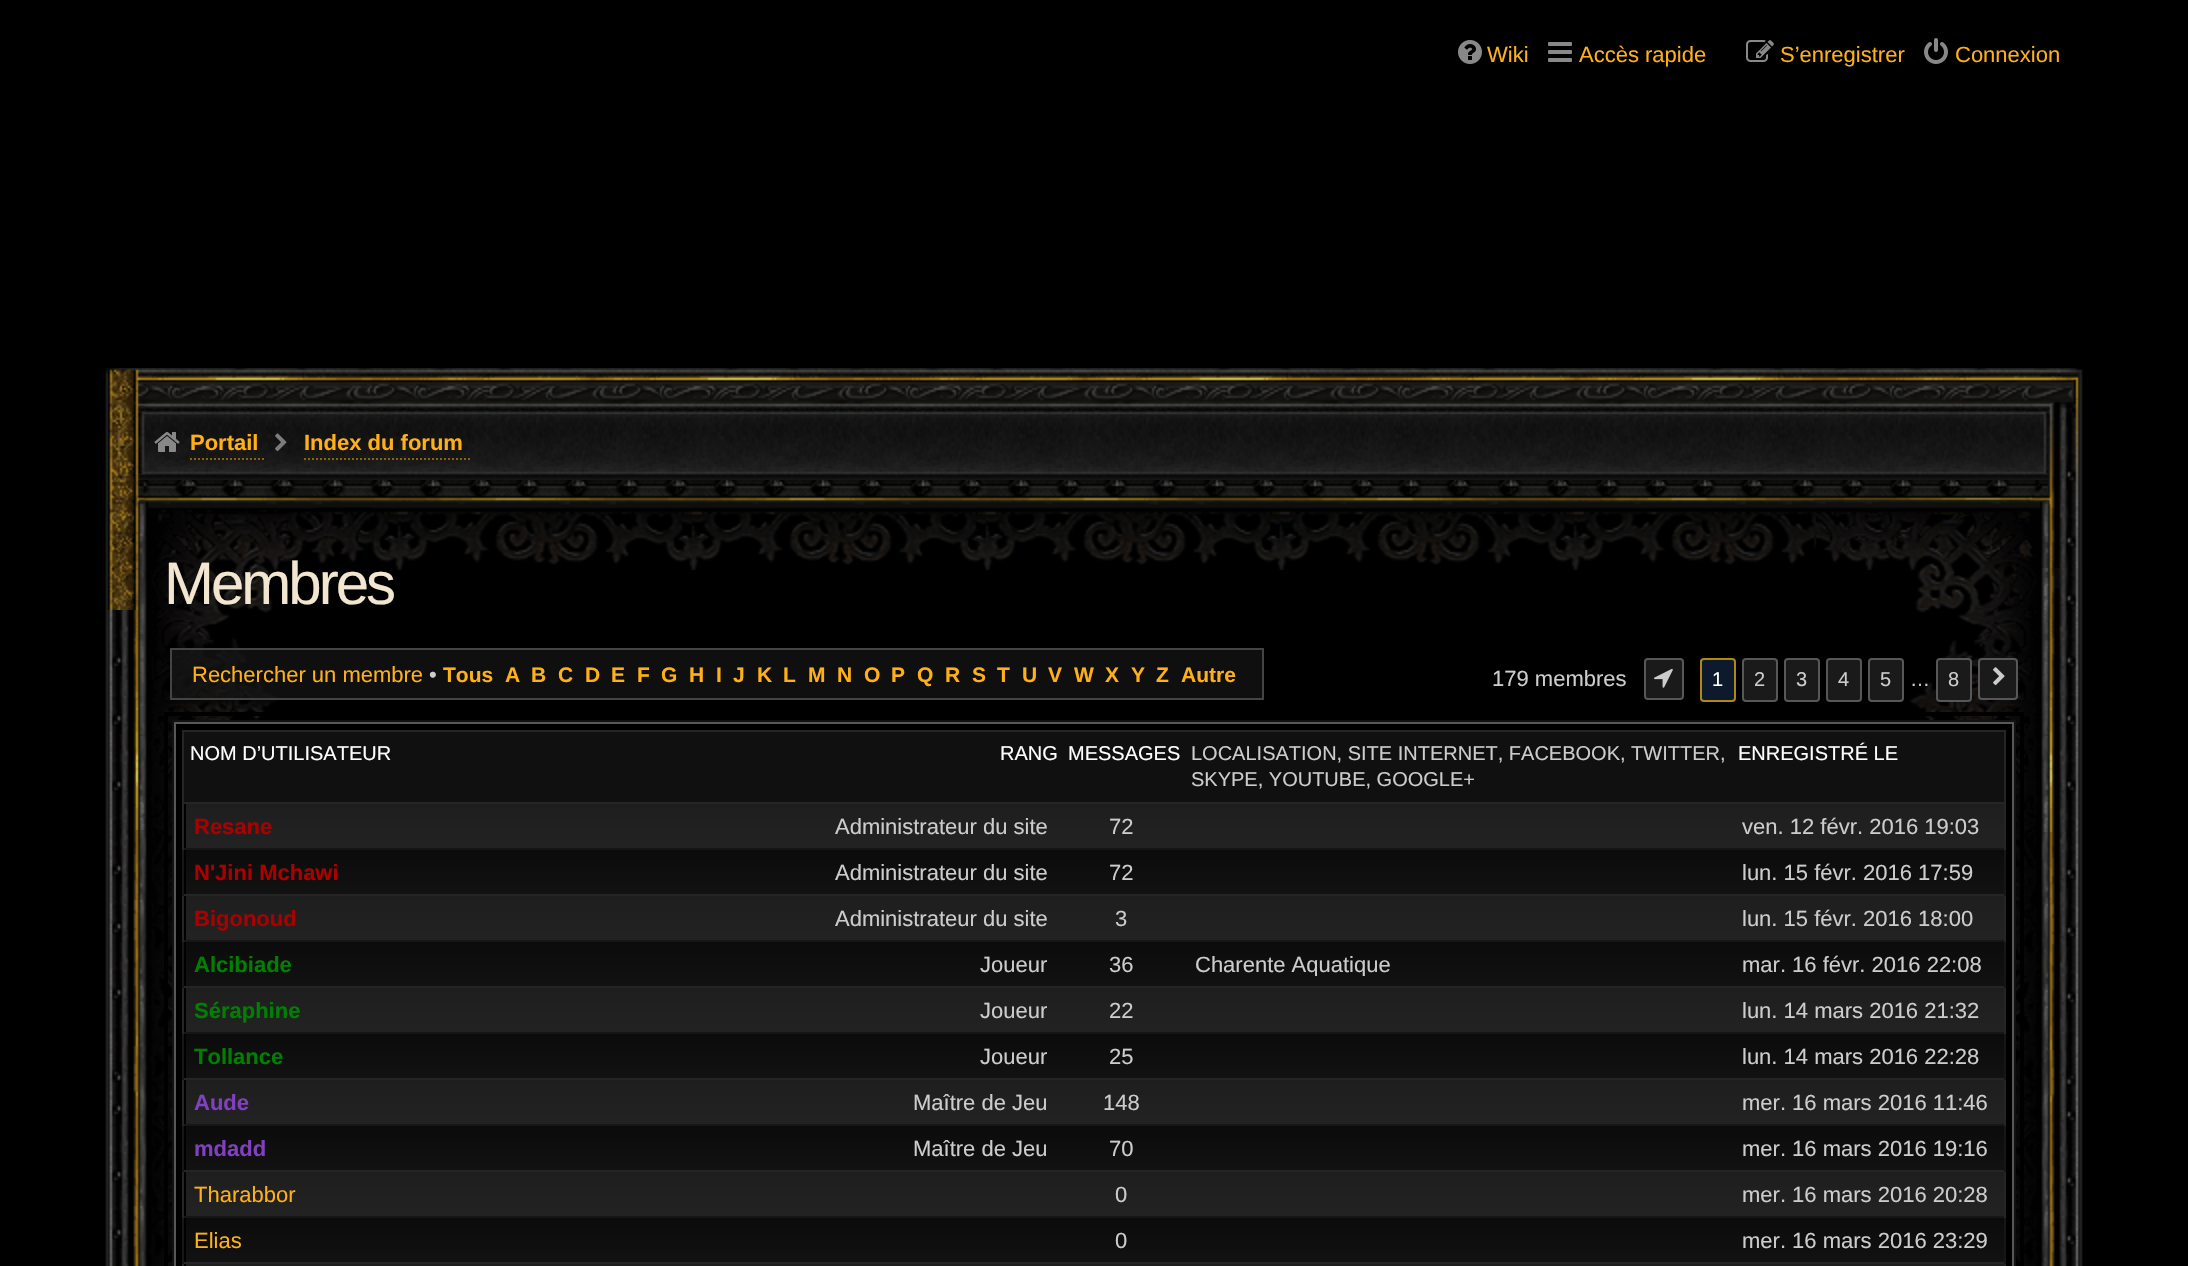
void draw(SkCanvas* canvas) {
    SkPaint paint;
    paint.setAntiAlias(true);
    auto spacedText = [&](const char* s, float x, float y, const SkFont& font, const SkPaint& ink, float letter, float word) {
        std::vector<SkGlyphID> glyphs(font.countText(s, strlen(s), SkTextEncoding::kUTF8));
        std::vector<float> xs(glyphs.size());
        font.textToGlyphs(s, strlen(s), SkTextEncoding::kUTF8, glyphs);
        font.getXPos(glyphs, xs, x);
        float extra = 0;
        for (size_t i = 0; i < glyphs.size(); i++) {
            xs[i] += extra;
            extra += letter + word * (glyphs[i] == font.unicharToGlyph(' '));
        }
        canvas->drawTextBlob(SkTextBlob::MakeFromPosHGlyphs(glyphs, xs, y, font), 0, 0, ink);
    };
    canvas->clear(0xFF000000);
    canvas->drawImageRect(SkImages::DeferredFromEncodedData(SkData::MakeFromFileName("img1.png")), SkRect::MakeXYWH(1458, 40, 24, 24), SkSamplingOptions());
    SkFont font1(fontMgr->matchFamilyStyle("Liberation Sans", SkFontStyle::Normal()), 22);
    font1.setSubpixel(true);
    paint.setColor(0xFFFFB019);
    canvas->drawString("Wiki", 1487, 62, font1, paint);
    canvas->drawImageRect(SkImages::DeferredFromEncodedData(SkData::MakeFromFileName("img2.png")), SkRect::MakeXYWH(1548, 42, 24, 20), SkSamplingOptions());
    canvas->drawString("Accès rapide", 1579, 62, font1, paint);
    canvas->drawImageRect(SkImages::DeferredFromEncodedData(SkData::MakeFromFileName("img3.png")), SkRect::MakeXYWH(1746, 40, 28, 22), SkSamplingOptions());
    canvas->drawString("S’enregistrer", 1780, 62, font1, paint);
    canvas->drawImageRect(SkImages::DeferredFromEncodedData(SkData::MakeFromFileName("img4.png")), SkRect::MakeXYWH(1924, 38, 24, 26), SkSamplingOptions());
    canvas->drawString("Connexion", 1955, 62, font1, paint);
    canvas->drawImageRect(SkImages::DeferredFromEncodedData(SkData::MakeFromFileName("img5.png")), SkRect::MakeXYWH(127, 368, 1952, 42), SkSamplingOptions());
    canvas->drawImageRect(SkImages::DeferredFromEncodedData(SkData::MakeFromFileName("img6.png")), SkRect::MakeXYWH(137, 410, 1914, 70), SkSamplingOptions());
    canvas->drawImageRect(SkImages::DeferredFromEncodedData(SkData::MakeFromFileName("img11.png")), SkRect::MakeXYWH(105, 480, 1978, 786), SkSamplingOptions());
    canvas->drawImageRect(SkImages::DeferredFromEncodedData(SkData::MakeFromFileName("img7.png")), SkRect::MakeXYWH(104, 368, 44, 242), SkSamplingOptions());
    canvas->drawImageRect(SkImages::DeferredFromEncodedData(SkData::MakeFromFileName("img8.png")), SkRect::MakeXYWH(154, 432, 26, 20), SkSamplingOptions());
    SkFont font2(fontMgr->matchFamilyStyle("Liberation Sans", SkFontStyle::Bold()), 22);
    font2.setSubpixel(true);
    canvas->drawString("Portail", 190, 450, font2, paint);
    canvas->save();
    canvas->clipRect(SkRect::MakeXYWH(184, 410, 80, 64));
    paint.setStyle(SkPaint::kStroke_Style);
    paint.setStrokeWidth(2);
    paint.setColor(0xFF8C6407);
    paint.setPathEffect(SkDashPathEffect::Make({{2, 2}}, 0));
    canvas->drawPath(SkPathBuilder().moveTo(190, 459).lineTo(270, 459).detach(), paint);
    paint.setPathEffect(nullptr);
    canvas->restore();
    canvas->drawImageRect(SkImages::DeferredFromEncodedData(SkData::MakeFromFileName("img9.png")), SkRect::MakeXYWH(275, 433, 12, 18), SkSamplingOptions());
    paint.setStyle(SkPaint::kFill_Style);
    paint.setColor(0xFFFFB019);
    canvas->drawString("Index du forum", 304, 450, font2, paint);
    canvas->save();
    canvas->clipRect(SkRect::MakeXYWH(298, 410, 172, 64));
    paint.setStyle(SkPaint::kStroke_Style);
    paint.setColor(0xFF8C6407);
    paint.setPathEffect(SkDashPathEffect::Make({{2, 2}}, 0));
    canvas->drawPath(SkPathBuilder().moveTo(304, 459).lineTo(476, 459).detach(), paint);
    paint.setPathEffect(nullptr);
    canvas->restore();
    canvas->drawImageRect(SkImages::DeferredFromEncodedData(SkData::MakeFromFileName("img10.png")), SkRect::MakeXYWH(2040, 368, 44, 200), SkSamplingOptions());
    SkFont font3(fontMgr->matchFamilyStyle("Liberation Sans", SkFontStyle::Normal()), 60);
    font3.setSubpixel(true);
    paint.setStyle(SkPaint::kFill_Style);
    paint.setColor(0xFFF3E6D0);
    spacedText("Membres", 164, 604, font3, paint, -3, 0);
    paint.setStyle(SkPaint::kStroke_Style);
    paint.setColor(0xFF000000);
    canvas->drawRect(SkRect::MakeXYWH(165, 713, 1858, 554), paint);
    canvas->drawRect(SkRect::MakeXYWH(167, 715, 1854, 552), paint);
    canvas->save();
    canvas->clipPath(SkPathBuilder(SkPathFillType::kEvenOdd).moveTo(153, 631).lineTo(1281, 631).lineTo(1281, 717).lineTo(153, 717).close().moveTo(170, 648).lineTo(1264, 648).lineTo(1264, 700).lineTo(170, 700).close().detach(), true);
    paint.setStyle(SkPaint::kFill_Style);
    paint.setColor(0x99000000);
    paint.setMaskFilter(SkMaskFilter::MakeBlur(kNormal_SkBlurStyle, 4));
    canvas->drawRect(SkRect::MakeXYWH(166, 644, 1102, 60), paint);
    paint.setMaskFilter(nullptr);
    canvas->restore();
    paint.setColor(0xBF141414);
    canvas->drawRect(SkRect::MakeXYWH(171, 649, 1092, 50), paint);
    paint.setStyle(SkPaint::kStroke_Style);
    paint.setColor(0xFF444444);
    canvas->drawRect(SkRect::MakeXYWH(171, 649, 1092, 50), paint);
    paint.setStyle(SkPaint::kFill_Style);
    paint.setColor(0xFFFFB019);
    canvas->drawString("Rechercher un membre", 192, 682, font1, paint);
    paint.setColor(0xFFCCCCCC);
    canvas->drawString("•", 429, 682, font1, paint);
    SkFont font4(fontMgr->matchFamilyStyle("Liberation Sans", SkFontStyle::Bold()), 21);
    font4.setSubpixel(true);
    paint.setColor(0xFFFFB019);
    canvas->drawString("Tous", 443, 682, font4, paint);
    canvas->drawString("A", 505, 682, font4, paint);
    canvas->drawString("B", 531, 682, font4, paint);
    canvas->drawString("C", 558, 682, font4, paint);
    canvas->drawString("D", 585, 682, font4, paint);
    canvas->drawString("E", 611, 682, font4, paint);
    canvas->drawString("F", 637, 682, font4, paint);
    canvas->drawString("G", 661, 682, font4, paint);
    canvas->drawString("H", 689, 682, font4, paint);
    canvas->drawString("I", 716, 682, font4, paint);
    canvas->drawString("J", 733, 682, font4, paint);
    canvas->drawString("K", 757, 682, font4, paint);
    canvas->drawString("L", 783, 682, font4, paint);
    canvas->drawString("M", 808, 682, font4, paint);
    canvas->drawString("N", 837, 682, font4, paint);
    canvas->drawString("O", 864, 682, font4, paint);
    canvas->drawString("P", 891, 682, font4, paint);
    canvas->drawString("Q", 917, 682, font4, paint);
    canvas->drawString("R", 945, 682, font4, paint);
    canvas->drawString("S", 972, 682, font4, paint);
    canvas->drawString("T", 997, 682, font4, paint);
    canvas->drawString("U", 1022, 682, font4, paint);
    canvas->drawString("V", 1048, 682, font4, paint);
    canvas->drawString("W", 1074, 682, font4, paint);
    canvas->drawString("X", 1105, 682, font4, paint);
    canvas->drawString("Y", 1131, 682, font4, paint);
    canvas->drawString("Z", 1156, 682, font4, paint);
    canvas->drawString("Autre", 1181, 682, font4, paint);
    paint.setColor(0xFFCCCCCC);
    canvas->drawString("179 membres", 1492, 686, font1, paint);
    paint.setColor(0xFF1A1A1A);
    canvas->drawRoundRect(SkRect::MakeXYWH(1645, 659, 38, 40), 3, 3, paint);
    paint.setStyle(SkPaint::kStroke_Style);
    paint.setColor(0xFF575757);
    canvas->drawRoundRect(SkRect::MakeXYWH(1645, 659, 38, 40), 3, 3, paint);
    canvas->drawImageRect(SkImages::DeferredFromEncodedData(SkData::MakeFromFileName("img12.png")), SkRect::MakeXYWH(1654, 668, 19, 20), SkSamplingOptions());
    paint.setStyle(SkPaint::kFill_Style);
    paint.setColor(0xFF0D1A2D);
    canvas->drawRoundRect(SkRect::MakeXYWH(1701, 659, 34, 42), 3, 3, paint);
    paint.setStyle(SkPaint::kStroke_Style);
    paint.setColor(0xFFB28910);
    canvas->drawRoundRect(SkRect::MakeXYWH(1701, 659, 34, 42), 3, 3, paint);
    SkFont font5(fontMgr->matchFamilyStyle("Liberation Sans", SkFontStyle::Normal()), 20);
    font5.setSubpixel(true);
    paint.setStyle(SkPaint::kFill_Style);
    paint.setColor(0xFFFFFFFF);
    canvas->drawString("1", 1712, 686, font5, paint);
    paint.setColor(0xFF1A1A1A);
    canvas->drawRoundRect(SkRect::MakeXYWH(1743, 659, 34, 42), 3, 3, paint);
    paint.setStyle(SkPaint::kStroke_Style);
    paint.setColor(0xFF575757);
    canvas->drawRoundRect(SkRect::MakeXYWH(1743, 659, 34, 42), 3, 3, paint);
    paint.setStyle(SkPaint::kFill_Style);
    paint.setColor(0xFFCCCCCC);
    canvas->drawString("2", 1754, 686, font5, paint);
    paint.setColor(0xFF1A1A1A);
    canvas->drawRoundRect(SkRect::MakeXYWH(1785, 659, 34, 42), 3, 3, paint);
    paint.setStyle(SkPaint::kStroke_Style);
    paint.setColor(0xFF575757);
    canvas->drawRoundRect(SkRect::MakeXYWH(1785, 659, 34, 42), 3, 3, paint);
    paint.setStyle(SkPaint::kFill_Style);
    paint.setColor(0xFFCCCCCC);
    canvas->drawString("3", 1796, 686, font5, paint);
    paint.setColor(0xFF1A1A1A);
    canvas->drawRoundRect(SkRect::MakeXYWH(1827, 659, 34, 42), 3, 3, paint);
    paint.setStyle(SkPaint::kStroke_Style);
    paint.setColor(0xFF575757);
    canvas->drawRoundRect(SkRect::MakeXYWH(1827, 659, 34, 42), 3, 3, paint);
    paint.setStyle(SkPaint::kFill_Style);
    paint.setColor(0xFFCCCCCC);
    canvas->drawString("4", 1838, 686, font5, paint);
    paint.setColor(0xFF1A1A1A);
    canvas->drawRoundRect(SkRect::MakeXYWH(1869, 659, 34, 42), 3, 3, paint);
    paint.setStyle(SkPaint::kStroke_Style);
    paint.setColor(0xFF575757);
    canvas->drawRoundRect(SkRect::MakeXYWH(1869, 659, 34, 42), 3, 3, paint);
    paint.setStyle(SkPaint::kFill_Style);
    paint.setColor(0xFFCCCCCC);
    canvas->drawString("5", 1880, 686, font5, paint);
    canvas->drawString("…", 1910, 686, font5, paint);
    paint.setColor(0xFF1A1A1A);
    canvas->drawRoundRect(SkRect::MakeXYWH(1937, 659, 34, 42), 3, 3, paint);
    paint.setStyle(SkPaint::kStroke_Style);
    paint.setColor(0xFF575757);
    canvas->drawRoundRect(SkRect::MakeXYWH(1937, 659, 34, 42), 3, 3, paint);
    paint.setStyle(SkPaint::kFill_Style);
    paint.setColor(0xFFCCCCCC);
    canvas->drawString("8", 1948, 686, font5, paint);
    paint.setColor(0xFF1A1A1A);
    canvas->drawRoundRect(SkRect::MakeXYWH(1979, 659, 38, 40), 3, 3, paint);
    paint.setStyle(SkPaint::kStroke_Style);
    paint.setColor(0xFF575757);
    canvas->drawRoundRect(SkRect::MakeXYWH(1979, 659, 38, 40), 3, 3, paint);
    canvas->drawImageRect(SkImages::DeferredFromEncodedData(SkData::MakeFromFileName("img13.png")), SkRect::MakeXYWH(1993, 667, 12, 19), SkSamplingOptions());
    paint.setColor(0xFF111111);
    canvas->drawRect(SkRect::MakeXYWH(173, 721, 1842, 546), paint);
    paint.setStyle(SkPaint::kFill_Style);
    paint.setColor(0xFF000000);
    canvas->drawRect(SkRect::MakeXYWH(175, 723, 1838, 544), paint);
    paint.setStyle(SkPaint::kStroke_Style);
    paint.setColor(0xFF575757);
    canvas->drawRect(SkRect::MakeXYWH(175, 723, 1838, 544), paint);
    paint.setStyle(SkPaint::kFill_Style);
    paint.setColor(0xFF101010);
    canvas->drawRect(SkRect::MakeXYWH(184, 732, 1820, 70), paint);
    paint.setColor(0xFF252525);
    canvas->drawRect(SkRect::MakeXYWH(182, 730, 1824, 2), paint);
    canvas->drawRect(SkRect::MakeXYWH(182, 802, 1824, 2), paint);
    paint.setColor(0xFF161616);
    canvas->drawRect(SkRect::MakeXYWH(182, 848, 1824, 2), paint);
    paint.setColor(0xFF252525);
    canvas->drawRect(SkRect::MakeXYWH(182, 894, 1824, 2), paint);
    paint.setColor(0xFF161616);
    canvas->drawRect(SkRect::MakeXYWH(182, 940, 1824, 2), paint);
    paint.setColor(0xFF252525);
    canvas->drawRect(SkRect::MakeXYWH(182, 986, 1824, 2), paint);
    paint.setColor(0xFF161616);
    canvas->drawRect(SkRect::MakeXYWH(182, 1032, 1824, 2), paint);
    paint.setColor(0xFF252525);
    canvas->drawRect(SkRect::MakeXYWH(182, 1078, 1824, 2), paint);
    paint.setColor(0xFF161616);
    canvas->drawRect(SkRect::MakeXYWH(182, 1124, 1824, 2), paint);
    paint.setColor(0xFF252525);
    canvas->drawRect(SkRect::MakeXYWH(182, 1170, 1824, 2), paint);
    paint.setColor(0xFF161616);
    canvas->drawRect(SkRect::MakeXYWH(182, 1216, 1824, 2), paint);
    paint.setColor(0xFF252525);
    canvas->drawRect(SkRect::MakeXYWH(182, 1262, 1824, 2), paint);
    canvas->drawRect(SkRect::MakeXYWH(2004, 1262, 2, 4), paint);
    paint.setColor(0xFF161616);
    canvas->drawRect(SkRect::MakeXYWH(2004, 1216, 2, 48), paint);
    paint.setColor(0xFF252525);
    canvas->drawRect(SkRect::MakeXYWH(2004, 1170, 2, 48), paint);
    paint.setColor(0xFF161616);
    canvas->drawRect(SkRect::MakeXYWH(2004, 1124, 2, 48), paint);
    paint.setColor(0xFF252525);
    canvas->drawRect(SkRect::MakeXYWH(2004, 1078, 2, 48), paint);
    paint.setColor(0xFF161616);
    canvas->drawRect(SkRect::MakeXYWH(2004, 1032, 2, 48), paint);
    paint.setColor(0xFF252525);
    canvas->drawRect(SkRect::MakeXYWH(2004, 986, 2, 48), paint);
    paint.setColor(0xFF161616);
    canvas->drawRect(SkRect::MakeXYWH(2004, 940, 2, 48), paint);
    paint.setColor(0xFF252525);
    canvas->drawRect(SkRect::MakeXYWH(2004, 894, 2, 48), paint);
    paint.setColor(0xFF161616);
    canvas->drawRect(SkRect::MakeXYWH(2004, 848, 2, 48), paint);
    paint.setColor(0xFF252525);
    canvas->drawRect(SkRect::MakeXYWH(2004, 802, 2, 48), paint);
    canvas->drawRect(SkRect::MakeXYWH(2004, 730, 2, 74), paint);
    canvas->drawRect(SkRect::MakeXYWH(182, 1262, 2, 4), paint);
    paint.setColor(0xFF161616);
    canvas->drawRect(SkRect::MakeXYWH(182, 1216, 2, 48), paint);
    paint.setColor(0xFF252525);
    canvas->drawRect(SkRect::MakeXYWH(182, 1170, 2, 48), paint);
    paint.setColor(0xFF161616);
    canvas->drawRect(SkRect::MakeXYWH(182, 1124, 2, 48), paint);
    paint.setColor(0xFF252525);
    canvas->drawRect(SkRect::MakeXYWH(182, 1078, 2, 48), paint);
    paint.setColor(0xFF161616);
    canvas->drawRect(SkRect::MakeXYWH(182, 1032, 2, 48), paint);
    paint.setColor(0xFF252525);
    canvas->drawRect(SkRect::MakeXYWH(182, 986, 2, 48), paint);
    paint.setColor(0xFF161616);
    canvas->drawRect(SkRect::MakeXYWH(182, 940, 2, 48), paint);
    paint.setColor(0xFF252525);
    canvas->drawRect(SkRect::MakeXYWH(182, 894, 2, 48), paint);
    paint.setColor(0xFF161616);
    canvas->drawRect(SkRect::MakeXYWH(182, 848, 2, 48), paint);
    paint.setColor(0xFF252525);
    canvas->drawRect(SkRect::MakeXYWH(182, 802, 2, 48), paint);
    canvas->drawRect(SkRect::MakeXYWH(182, 730, 2, 74), paint);
    paint.setColor(0xFFFFFFFF);
    canvas->drawString("NOM D’UTILISATEUR", 190, 760, font5, paint);
    canvas->drawString("RANG", 1000, 760, font5, paint);
    canvas->drawString("MESSAGES", 1068, 760, font5, paint);
    paint.setColor(0xFFCCCCCC);
    canvas->drawString("LOCALISATION, SITE INTERNET, FACEBOOK, TWITTER,", 1191, 760, font5, paint);
    canvas->drawString("SKYPE, YOUTUBE, GOOGLE+", 1191, 786, font5, paint);
    paint.setColor(0xFFFFFFFF);
    canvas->drawString("ENREGISTRÉ LE", 1738, 760, font5, paint);
    {
        const SkColor colors[] = {0xFF1E1E1E, 0xFF252525};
        const float stops[] = {0, 1};
        const SkPoint ends[] = {{1095, 804}, {1095, 874}};
        paint.setShader(SkGradientShader::MakeLinear(ends, colors, stops, 2, SkTileMode::kClamp));
        paint.setAlpha(255);
    }
    canvas->drawRect(SkRect::MakeXYWH(186, 804, 1818, 44), paint);
    paint.setShader(nullptr);
    paint.setColor(0xFFAA0000);
    canvas->drawString("Resane", 194, 834, font2, paint);
    paint.setColor(0xFFCCCCCC);
    canvas->drawString("Administrateur du site", 835, 834, font1, paint);
    canvas->drawString("72", 1109, 834, font1, paint);
    canvas->drawString("ven. 12 févr. 2016 19:03", 1742, 834, font1, paint);
    {
        const SkColor colors[] = {0xFF0B0B0B, 0xFF161616};
        const float stops[] = {0, 1};
        const SkPoint ends[] = {{1095, 850}, {1095, 920}};
        paint.setShader(SkGradientShader::MakeLinear(ends, colors, stops, 2, SkTileMode::kClamp));
        paint.setAlpha(255);
    }
    canvas->drawRect(SkRect::MakeXYWH(186, 850, 1818, 44), paint);
    paint.setShader(nullptr);
    paint.setColor(0xFFAA0000);
    canvas->drawString("N'Jini Mchawi", 194, 880, font2, paint);
    paint.setColor(0xFFCCCCCC);
    canvas->drawString("Administrateur du site", 835, 880, font1, paint);
    canvas->drawString("72", 1109, 880, font1, paint);
    canvas->drawString("lun. 15 févr. 2016 17:59", 1742, 880, font1, paint);
    {
        const SkColor colors[] = {0xFF1E1E1E, 0xFF252525};
        const float stops[] = {0, 1};
        const SkPoint ends[] = {{1095, 896}, {1095, 966}};
        paint.setShader(SkGradientShader::MakeLinear(ends, colors, stops, 2, SkTileMode::kClamp));
        paint.setAlpha(255);
    }
    canvas->drawRect(SkRect::MakeXYWH(186, 896, 1818, 44), paint);
    paint.setShader(nullptr);
    paint.setColor(0xFFAA0000);
    canvas->drawString("Bigonoud", 194, 926, font2, paint);
    paint.setColor(0xFFCCCCCC);
    canvas->drawString("Administrateur du site", 835, 926, font1, paint);
    canvas->drawString("3", 1115, 926, font1, paint);
    canvas->drawString("lun. 15 févr. 2016 18:00", 1742, 926, font1, paint);
    {
        const SkColor colors[] = {0xFF0B0B0B, 0xFF161616};
        const float stops[] = {0, 1};
        const SkPoint ends[] = {{1095, 942}, {1095, 1012}};
        paint.setShader(SkGradientShader::MakeLinear(ends, colors, stops, 2, SkTileMode::kClamp));
        paint.setAlpha(255);
    }
    canvas->drawRect(SkRect::MakeXYWH(186, 942, 1818, 44), paint);
    paint.setShader(nullptr);
    paint.setColor(0xFF008000);
    canvas->drawString("Alcibiade", 194, 972, font2, paint);
    paint.setColor(0xFFCCCCCC);
    canvas->drawString("Joueur", 980, 972, font1, paint);
    canvas->drawString("36", 1109, 972, font1, paint);
    canvas->save();
    canvas->clipRect(SkRect::MakeXYWH(1196, 952, 526, 24));
    canvas->drawString("Charente Aquatique", 1195, 972, font1, paint);
    canvas->restore();
    canvas->drawString("mar. 16 févr. 2016 22:08", 1742, 972, font1, paint);
    {
        const SkColor colors[] = {0xFF1E1E1E, 0xFF252525};
        const float stops[] = {0, 1};
        const SkPoint ends[] = {{1095, 988}, {1095, 1058}};
        paint.setShader(SkGradientShader::MakeLinear(ends, colors, stops, 2, SkTileMode::kClamp));
        paint.setAlpha(255);
    }
    canvas->drawRect(SkRect::MakeXYWH(186, 988, 1818, 44), paint);
    paint.setShader(nullptr);
    paint.setColor(0xFF008000);
    canvas->drawString("Séraphine", 194, 1018, font2, paint);
    paint.setColor(0xFFCCCCCC);
    canvas->drawString("Joueur", 980, 1018, font1, paint);
    canvas->drawString("22", 1109, 1018, font1, paint);
    canvas->drawString("lun. 14 mars 2016 21:32", 1742, 1018, font1, paint);
    {
        const SkColor colors[] = {0xFF0B0B0B, 0xFF161616};
        const float stops[] = {0, 1};
        const SkPoint ends[] = {{1095, 1034}, {1095, 1104}};
        paint.setShader(SkGradientShader::MakeLinear(ends, colors, stops, 2, SkTileMode::kClamp));
        paint.setAlpha(255);
    }
    canvas->drawRect(SkRect::MakeXYWH(186, 1034, 1818, 44), paint);
    paint.setShader(nullptr);
    paint.setColor(0xFF008000);
    canvas->drawString("Tollance", 194, 1064, font2, paint);
    paint.setColor(0xFFCCCCCC);
    canvas->drawString("Joueur", 980, 1064, font1, paint);
    canvas->drawString("25", 1109, 1064, font1, paint);
    canvas->drawString("lun. 14 mars 2016 22:28", 1742, 1064, font1, paint);
    {
        const SkColor colors[] = {0xFF1E1E1E, 0xFF252525};
        const float stops[] = {0, 1};
        const SkPoint ends[] = {{1095, 1080}, {1095, 1150}};
        paint.setShader(SkGradientShader::MakeLinear(ends, colors, stops, 2, SkTileMode::kClamp));
        paint.setAlpha(255);
    }
    canvas->drawRect(SkRect::MakeXYWH(186, 1080, 1818, 44), paint);
    paint.setShader(nullptr);
    paint.setColor(0xFF8040BF);
    canvas->drawString("Aude", 194, 1110, font2, paint);
    paint.setColor(0xFFCCCCCC);
    canvas->drawString("Maître de Jeu", 913, 1110, font1, paint);
    canvas->drawString("148", 1103, 1110, font1, paint);
    canvas->drawString("mer. 16 mars 2016 11:46", 1742, 1110, font1, paint);
    {
        const SkColor colors[] = {0xFF0B0B0B, 0xFF161616};
        const float stops[] = {0, 1};
        const SkPoint ends[] = {{1095, 1126}, {1095, 1196}};
        paint.setShader(SkGradientShader::MakeLinear(ends, colors, stops, 2, SkTileMode::kClamp));
        paint.setAlpha(255);
    }
    canvas->drawRect(SkRect::MakeXYWH(186, 1126, 1818, 44), paint);
    paint.setShader(nullptr);
    paint.setColor(0xFF8040BF);
    canvas->drawString("mdadd", 194, 1156, font2, paint);
    paint.setColor(0xFFCCCCCC);
    canvas->drawString("Maître de Jeu", 913, 1156, font1, paint);
    canvas->drawString("70", 1109, 1156, font1, paint);
    canvas->drawString("mer. 16 mars 2016 19:16", 1742, 1156, font1, paint);
    {
        const SkColor colors[] = {0xFF1E1E1E, 0xFF252525};
        const float stops[] = {0, 1};
        const SkPoint ends[] = {{1095, 1172}, {1095, 1242}};
        paint.setShader(SkGradientShader::MakeLinear(ends, colors, stops, 2, SkTileMode::kClamp));
        paint.setAlpha(255);
    }
    canvas->drawRect(SkRect::MakeXYWH(186, 1172, 1818, 44), paint);
    paint.setShader(nullptr);
    paint.setColor(0xFFFFB019);
    canvas->drawString("Tharabbor", 194, 1202, font1, paint);
    paint.setColor(0xFFCCCCCC);
    canvas->drawString("0", 1115, 1202, font1, paint);
    canvas->drawString("mer. 16 mars 2016 20:28", 1742, 1202, font1, paint);
    {
        const SkColor colors[] = {0xFF0B0B0B, 0xFF161616};
        const float stops[] = {0, 1};
        const SkPoint ends[] = {{1095, 1218}, {1095, 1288}};
        paint.setShader(SkGradientShader::MakeLinear(ends, colors, stops, 2, SkTileMode::kClamp));
        paint.setAlpha(255);
    }
    canvas->drawRect(SkRect::MakeXYWH(186, 1218, 1818, 44), paint);
    paint.setShader(nullptr);
    paint.setColor(0xFFFFB019);
    canvas->drawString("Elias", 194, 1248, font1, paint);
    paint.setColor(0xFFCCCCCC);
    canvas->drawString("0", 1115, 1248, font1, paint);
    canvas->drawString("mer. 16 mars 2016 23:29", 1742, 1248, font1, paint);
    {
        const SkColor colors[] = {0xFF1E1E1E, 0xFF252525};
        const float stops[] = {0, 1};
        const SkPoint ends[] = {{1095, 1264}, {1095, 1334}};
        paint.setShader(SkGradientShader::MakeLinear(ends, colors, stops, 2, SkTileMode::kClamp));
        paint.setAlpha(255);
    }
    canvas->drawRect(SkRect::MakeXYWH(186, 1264, 1818, 2), paint);
}
